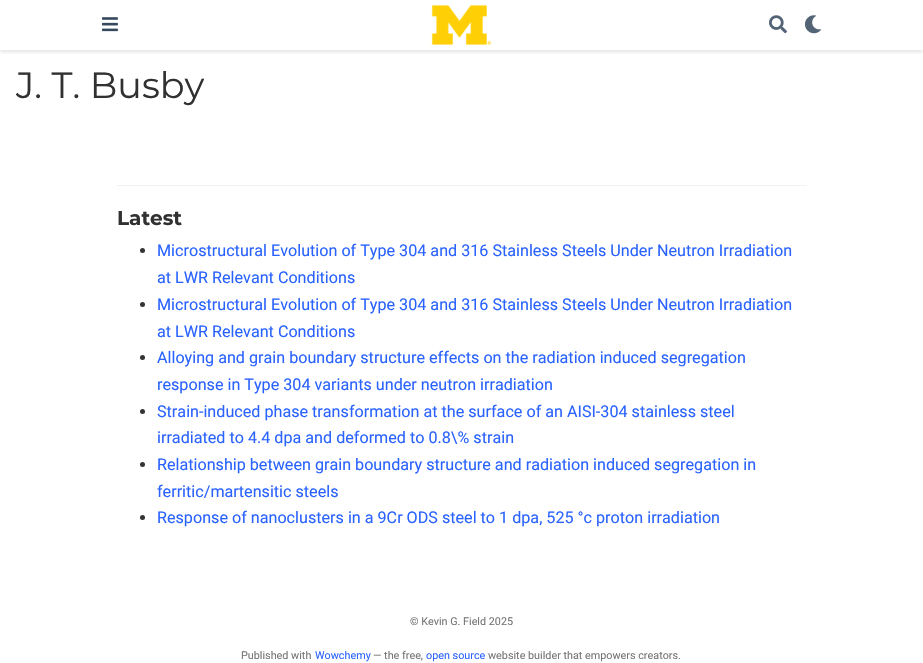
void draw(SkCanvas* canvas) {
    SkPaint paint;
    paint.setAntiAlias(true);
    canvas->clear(0xFFFFFFFF);
    canvas->save();
    canvas->clipRect(SkRect::MakeXYWH(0, 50, 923, 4));
    paint.setColor(0x1C000000);
    paint.setMaskFilter(SkMaskFilter::MakeBlur(kNormal_SkBlurStyle, 2));
    canvas->drawRect(SkRect::MakeXYWH(0, 2, 923, 50), paint);
    paint.setMaskFilter(nullptr);
    canvas->restore();
    canvas->drawImageRect(SkImages::DeferredFromEncodedData(SkData::MakeFromFileName("img1.png")), SkRect::MakeXYWH(102, 17, 16, 15), SkSamplingOptions());
    canvas->drawImageRect(SkImages::DeferredFromEncodedData(SkData::MakeFromFileName("img2.png")), SkRect::MakeXYWH(431, 5, 60, 40), SkSamplingOptions());
    canvas->drawImageRect(SkImages::DeferredFromEncodedData(SkData::MakeFromFileName("img3.png")), SkRect::MakeXYWH(769, 15, 18, 19), SkSamplingOptions());
    canvas->drawImageRect(SkImages::DeferredFromEncodedData(SkData::MakeFromFileName("img4.png")), SkRect::MakeXYWH(804, 15, 17, 19), SkSamplingOptions());
    SkFont font1(fontMgr->matchFamilyStyle("Montserrat", SkFontStyle::Normal()), 36.5f);
    font1.setSubpixel(true);
    paint.setColor(0xFF313131);
    canvas->drawString("J. T. Busby", 16, 98, font1, paint);
    paint.setColor(0xFFF2F2F2);
    canvas->drawRect(SkRect::MakeXYWH(117, 185, 690, 1), paint);
    SkFont font2(fontMgr->matchFamilyStyle("Montserrat", SkFontStyle::Bold()), 20);
    font2.setSubpixel(true);
    paint.setColor(0xFF313131);
    canvas->drawString("Latest", 117, 225, font2, paint);
    paint.setColor(0xFF333333);
    canvas->drawCircle(142.5f, 250.5f, 2.5f, paint);
    SkFont font3(fontMgr->matchFamilyStyle("Roboto", SkFontStyle::Normal()), 16.15f);
    font3.setSubpixel(true);
    paint.setColor(0xFF2962FF);
    canvas->drawString("Microstructural Evolution of Type 304 and 316 Stainless Steels Under Neutron Irradiation", 157, 256, font3, paint);
    canvas->drawString("at LWR Relevant Conditions", 157, 283, font3, paint);
    paint.setColor(0xFF333333);
    canvas->drawCircle(142.5f, 304.5f, 2.5f, paint);
    paint.setColor(0xFF2962FF);
    canvas->drawString("Microstructural Evolution of Type 304 and 316 Stainless Steels Under Neutron Irradiation", 157, 310, font3, paint);
    canvas->drawString("at LWR Relevant Conditions", 157, 337, font3, paint);
    paint.setColor(0xFF333333);
    canvas->drawCircle(142.5f, 357.5f, 2.5f, paint);
    paint.setColor(0xFF2962FF);
    canvas->drawString("Alloying and grain boundary structure effects on the radiation induced segregation", 157, 363, font3, paint);
    canvas->drawString("response in Type 304 variants under neutron irradiation", 157, 390, font3, paint);
    paint.setColor(0xFF333333);
    canvas->drawCircle(142.5f, 411.5f, 2.5f, paint);
    paint.setColor(0xFF2962FF);
    canvas->drawString("Strain-induced phase transformation at the surface of an AISI-304 stainless steel", 157, 417, font3, paint);
    canvas->drawString("irradiated to 4.4 dpa and deformed to 0.8\\% strain", 157, 443, font3, paint);
    paint.setColor(0xFF333333);
    canvas->drawCircle(142.5f, 464.5f, 2.5f, paint);
    paint.setColor(0xFF2962FF);
    canvas->drawString("Relationship between grain boundary structure and radiation induced segregation in", 157, 470, font3, paint);
    canvas->drawString("ferritic/martensitic steels", 157, 497, font3, paint);
    paint.setColor(0xFF333333);
    canvas->drawCircle(142.5f, 517.5f, 2.5f, paint);
    paint.setColor(0xFF2962FF);
    canvas->drawString("Response of nanoclusters in a 9Cr ODS steel to 1 dpa, 525 °c proton irradiation", 157, 523, font3, paint);
    SkFont font4(fontMgr->matchFamilyStyle("Roboto", SkFontStyle::Normal()), 10.8f);
    font4.setSubpixel(true);
    paint.setColor(0xFF757575);
    canvas->drawString("© Kevin G. Field 2025", 410, 625, font4, paint);
    canvas->drawString("Published with", 241, 659, font4, paint);
    paint.setColor(0xFF2962FF);
    canvas->drawString("Wowchemy", 315, 659, font4, paint);
    paint.setColor(0xFF757575);
    canvas->drawString("— the free,", 373, 659, font4, paint);
    paint.setColor(0xFF2962FF);
    canvas->drawString("open source", 426, 659, font4, paint);
    paint.setColor(0xFF757575);
    canvas->drawString("website builder that empowers creators.", 488, 659, font4, paint);
}
